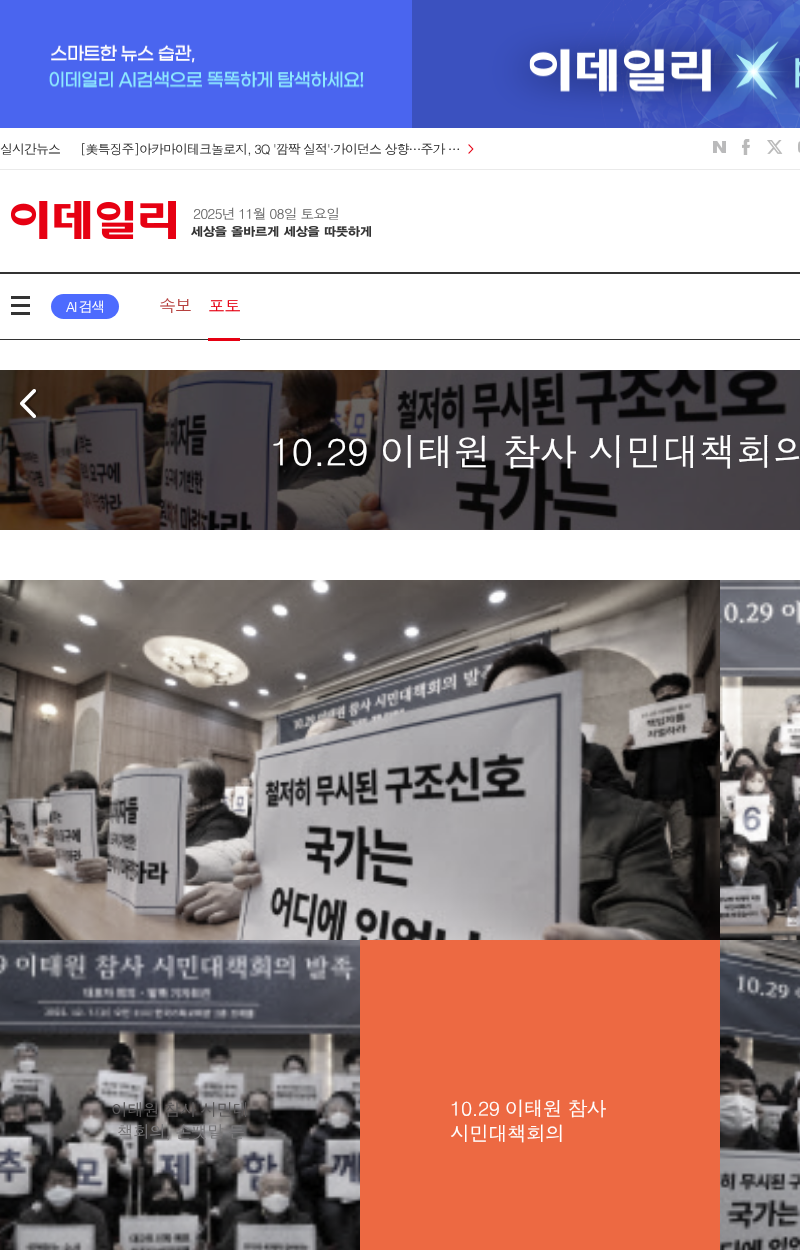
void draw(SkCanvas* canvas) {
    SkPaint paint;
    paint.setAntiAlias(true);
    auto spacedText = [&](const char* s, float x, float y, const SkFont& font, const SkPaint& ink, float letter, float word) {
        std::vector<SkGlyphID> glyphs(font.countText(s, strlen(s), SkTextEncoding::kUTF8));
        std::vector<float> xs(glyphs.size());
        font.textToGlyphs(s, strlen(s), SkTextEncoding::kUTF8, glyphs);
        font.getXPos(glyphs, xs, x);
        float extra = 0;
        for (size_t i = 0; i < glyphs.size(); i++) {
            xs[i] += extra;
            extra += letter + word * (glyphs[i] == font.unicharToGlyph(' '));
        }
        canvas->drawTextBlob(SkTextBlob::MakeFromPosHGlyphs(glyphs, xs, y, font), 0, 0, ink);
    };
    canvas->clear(0xFFFFFFFF);
    canvas->drawImageRect(SkImages::DeferredFromEncodedData(SkData::MakeFromFileName("img1.png")), SkRect::MakeXYWH(0, 0, 800, 128), SkSamplingOptions());
    paint.setColor(0xFFEAEAEA);
    canvas->drawRect(SkRect::MakeXYWH(0, 169, 800, 1), paint);
    SkFont font1(fontMgr->matchFamilyStyle("Dotum", SkFontStyle::Normal()), 13);
    font1.setSubpixel(true);
    paint.setColor(0xFF333333);
    spacedText("실시간뉴스", 0, 154, font1, paint, -1, 0);
    spacedText("[美특징주]아카마이테크놀로지, 3Q '깜짝 실적'·가이던스 상향…주가 …", 80, 154, font1, paint, -1, 0);
    canvas->drawImageRect(SkImages::DeferredFromEncodedData(SkData::MakeFromFileName("img2.png")), SkRect::MakeXYWH(468, 144, 6, 10), SkSamplingOptions());
    canvas->drawImageRect(SkImages::DeferredFromEncodedData(SkData::MakeFromFileName("img3.png")), SkRect::MakeXYWH(713, 141, 13, 12), SkSamplingOptions());
    canvas->drawImageRect(SkImages::DeferredFromEncodedData(SkData::MakeFromFileName("img4.png")), SkRect::MakeXYWH(742, 139, 8, 16), SkSamplingOptions());
    canvas->drawImageRect(SkImages::DeferredFromEncodedData(SkData::MakeFromFileName("img5.png")), SkRect::MakeXYWH(767, 140, 16, 14), SkSamplingOptions());
    canvas->drawImageRect(SkImages::DeferredFromEncodedData(SkData::MakeFromFileName("img6.png")), SkRect::MakeXYWH(798, 141, 2, 12), SkSamplingOptions());
    canvas->drawImageRect(SkImages::DeferredFromEncodedData(SkData::MakeFromFileName("img7.png")), SkRect::MakeXYWH(11, 201, 360, 38), SkSamplingOptions());
    SkFont font2(fontMgr->matchFamilyStyle("Dotum", SkFontStyle::Normal()), 14);
    font2.setSubpixel(true);
    paint.setColor(0xFF666666);
    spacedText("2025년 11월 08일 토요일", 193, 219, font2, paint, -1, 0);
    paint.setColor(0xFF333333);
    canvas->drawRect(SkRect::MakeXYWH(0, 272, 800, 2), paint);
    canvas->drawRect(SkRect::MakeXYWH(0, 339, 800, 1), paint);
    canvas->drawImageRect(SkImages::DeferredFromEncodedData(SkData::MakeFromFileName("img8.png")), SkRect::MakeXYWH(11, 296, 19, 19), SkSamplingOptions());
    paint.setColor(0xFF4D6BFE);
    canvas->drawRoundRect(SkRect::MakeXYWH(51, 294, 68, 25), 12.5f, 12.5f, paint);
    paint.setColor(0xFFFFFFFF);
    spacedText("AI 검색", 66, 312, font2, paint, -1.5f, 0);
    SkFont font3(fontMgr->matchFamilyStyle("Dotum", SkFontStyle::Normal()), 17);
    font3.setSubpixel(true);
    paint.setColor(0xFFB6403E);
    spacedText("속보", 159, 312, font3, paint, -1, 0);
    paint.setColor(0xFFE60012);
    spacedText("포토", 208, 312, font3, paint, -1, 0);
    canvas->drawRect(SkRect::MakeXYWH(208, 338, 32, 3), paint);
    canvas->drawImageRect(SkImages::DeferredFromEncodedData(SkData::MakeFromFileName("img9.png")), SkRect::MakeXYWH(0, 370, 800, 160), SkSamplingOptions());
    canvas->drawImageRect(SkImages::DeferredFromEncodedData(SkData::MakeFromFileName("img10.png")), SkRect::MakeXYWH(20, 389, 18, 29), SkSamplingOptions());
    SkFont font4(fontMgr->matchFamilyStyle("Dotum", SkFontStyle::Normal()), 38);
    font4.setSubpixel(true);
    paint.setColor(0xFFFFFFFF);
    spacedText("10.29 이태원 참사 시민대책회의", 270, 466, font4, paint, -1, 0);
    canvas->drawImageRect(SkImages::DeferredFromEncodedData(SkData::MakeFromFileName("img11.png")), SkRect::MakeXYWH(0, 580, 720, 360), SkSamplingOptions());
    canvas->drawImageRect(SkImages::DeferredFromEncodedData(SkData::MakeFromFileName("img12.png")), SkRect::MakeXYWH(720, 580, 80, 360), SkSamplingOptions());
    canvas->drawImageRect(SkImages::DeferredFromEncodedData(SkData::MakeFromFileName("img13.png")), SkRect::MakeXYWH(0, 940, 360, 310), SkSamplingOptions());
    paint.setColor(0xFF595758);
    spacedText("이태원 참사 시민대", 111, 1116, font3, paint, -1, 0);
    paint.setColor(0xFF777678);
    spacedText("책회의, 손팻말 든", 117, 1138, font3, paint, -1, 0);
    paint.setColor(0xFFED6942);
    canvas->drawRect(SkRect::MakeXYWH(360, 940, 360, 310), paint);
    SkFont font5(fontMgr->matchFamilyStyle("Dotum", SkFontStyle::Normal()), 20);
    font5.setSubpixel(true);
    paint.setColor(0xFFFFFFFF);
    spacedText("10.29 이태원 참사", 450, 1116, font5, paint, -1, 0);
    spacedText("시민대책회의", 450, 1141, font5, paint, -1, 0);
    canvas->drawImageRect(SkImages::DeferredFromEncodedData(SkData::MakeFromFileName("img14.png")), SkRect::MakeXYWH(720, 940, 80, 310), SkSamplingOptions());
}
